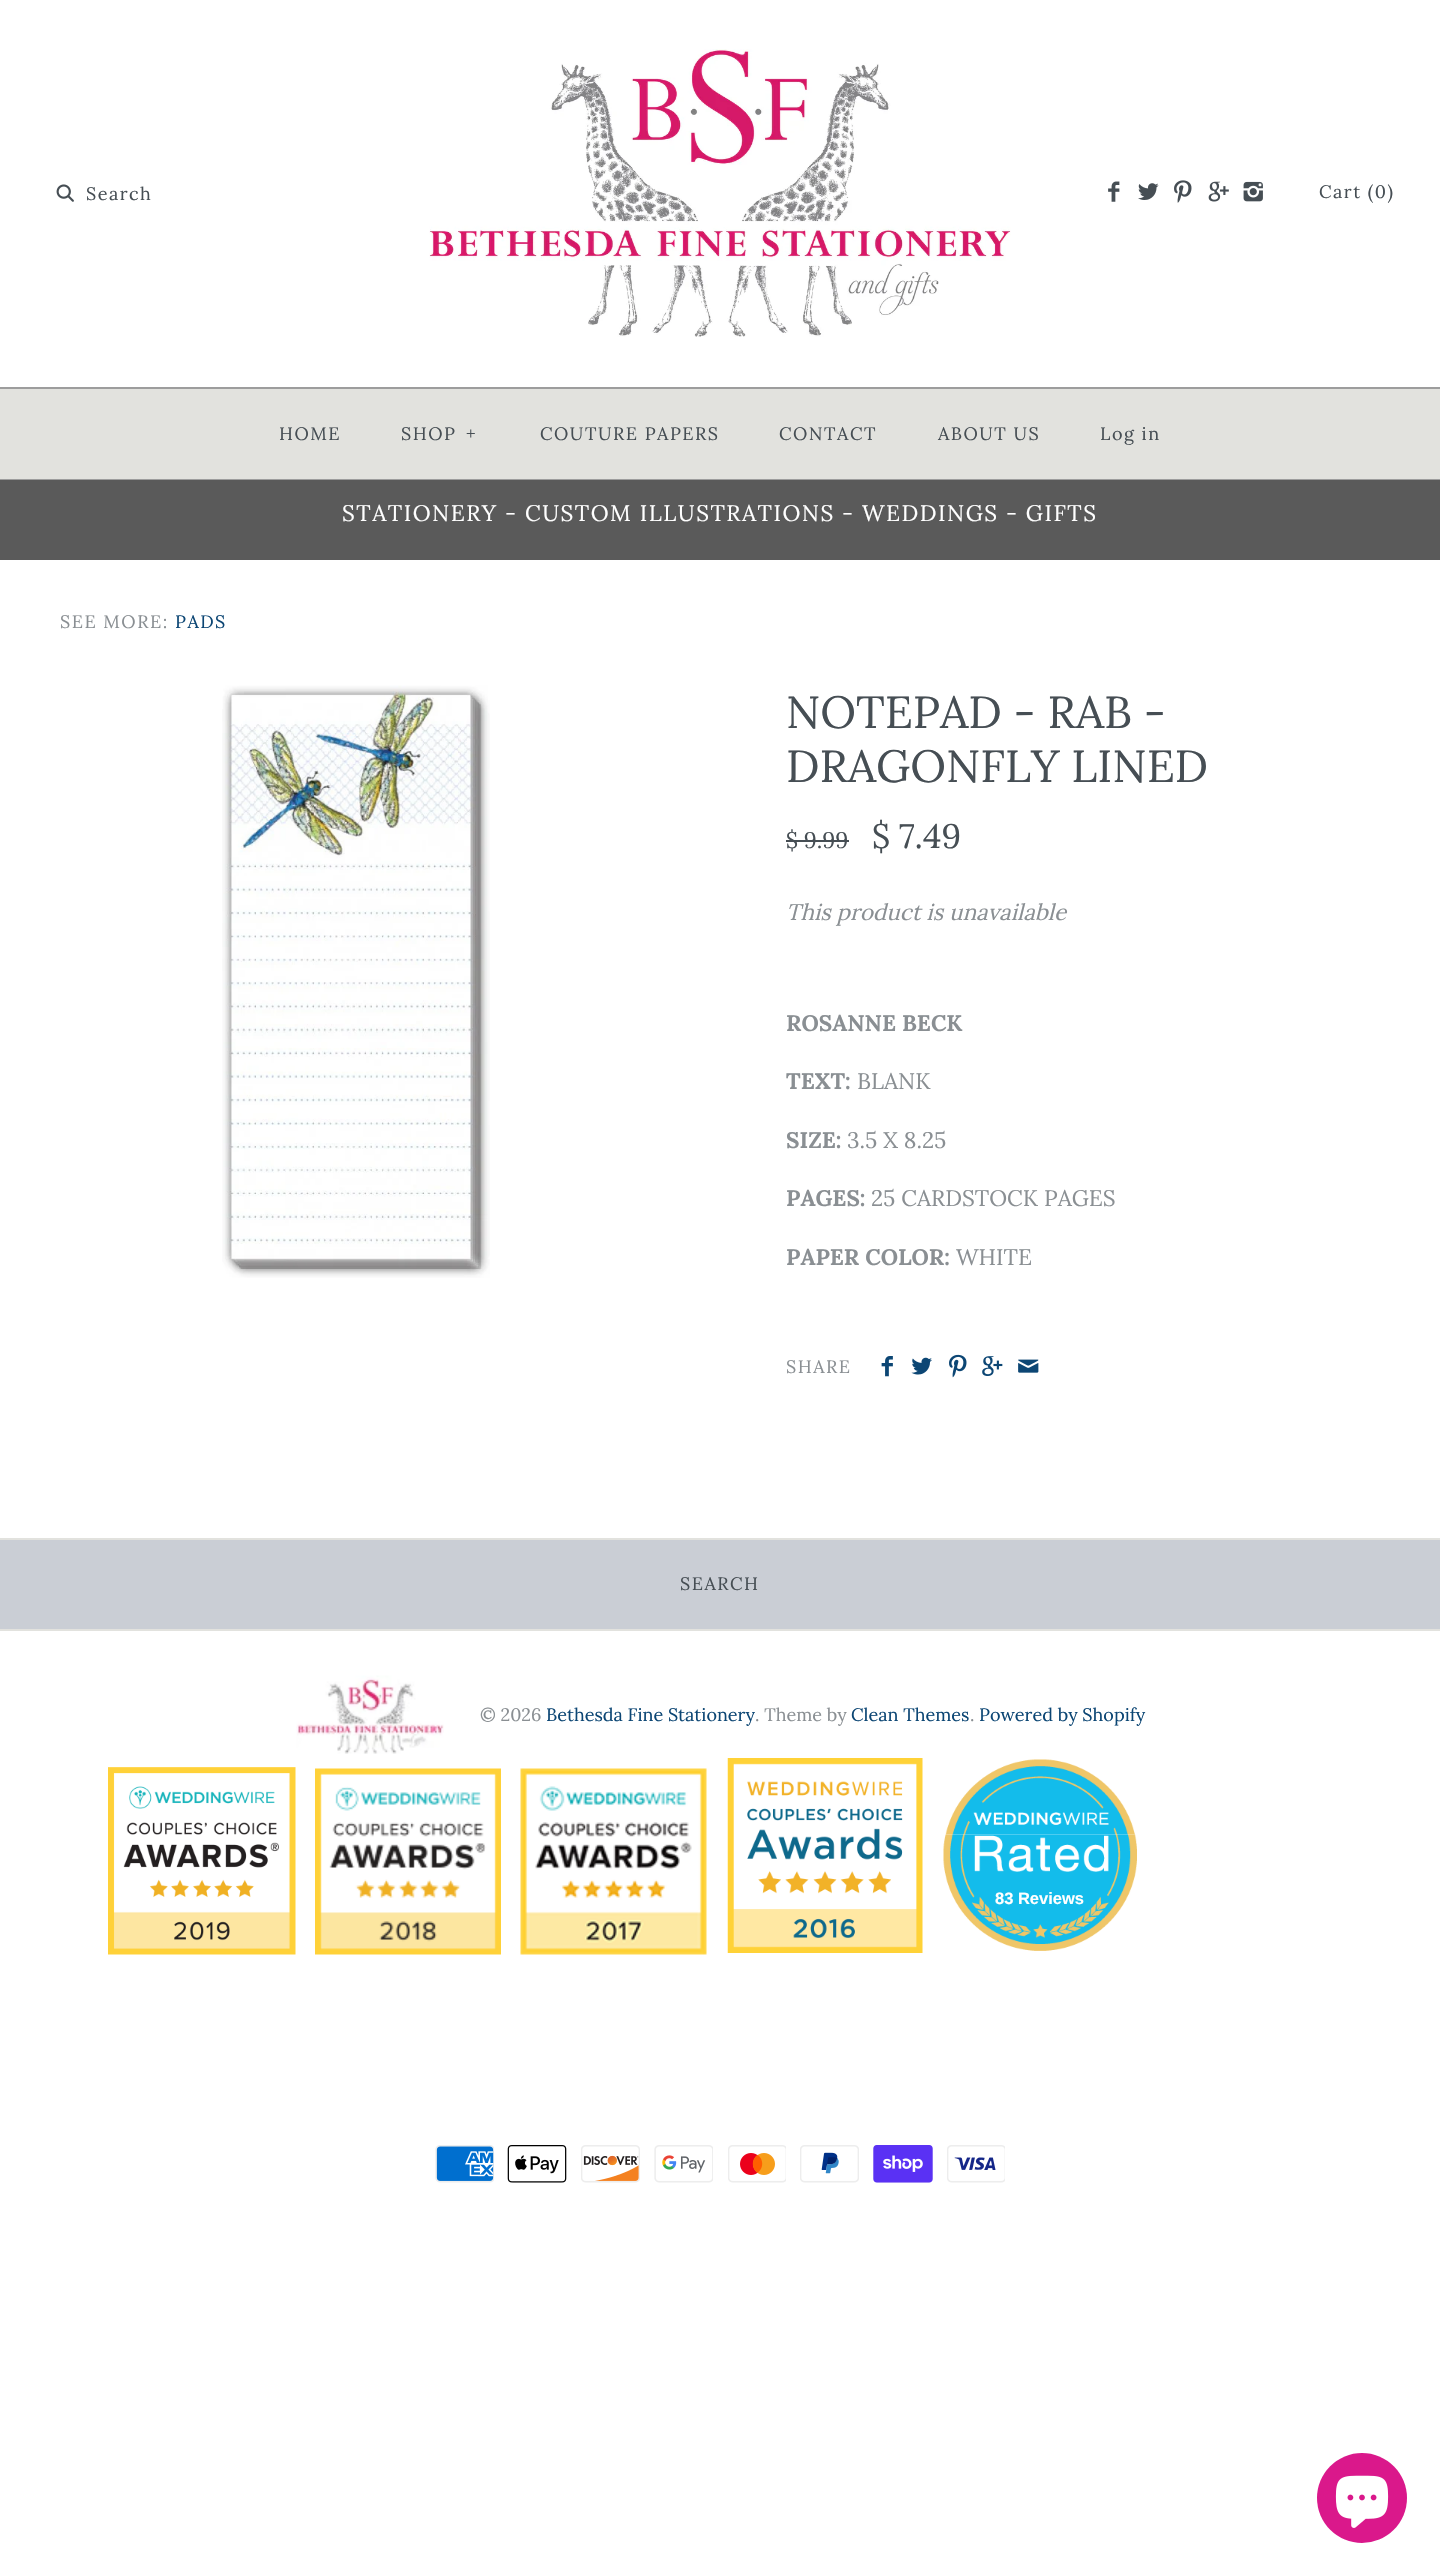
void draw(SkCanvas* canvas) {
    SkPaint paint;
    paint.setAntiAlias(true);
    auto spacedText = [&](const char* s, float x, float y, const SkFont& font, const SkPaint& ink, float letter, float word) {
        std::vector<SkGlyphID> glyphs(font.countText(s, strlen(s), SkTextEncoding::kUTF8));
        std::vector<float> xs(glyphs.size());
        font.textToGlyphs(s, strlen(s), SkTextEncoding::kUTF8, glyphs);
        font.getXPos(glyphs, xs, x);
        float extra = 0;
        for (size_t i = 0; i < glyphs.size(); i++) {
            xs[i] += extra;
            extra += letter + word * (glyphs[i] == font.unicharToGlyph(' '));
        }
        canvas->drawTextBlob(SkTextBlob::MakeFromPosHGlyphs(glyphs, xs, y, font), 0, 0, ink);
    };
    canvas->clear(0xFFFFFFFF);
    canvas->drawImageRect(SkImages::DeferredFromEncodedData(SkData::MakeFromFileName("img1.png")), SkRect::MakeXYWH(429, 49, 582, 288), SkSamplingOptions());
    canvas->drawImageRect(SkImages::DeferredFromEncodedData(SkData::MakeFromFileName("img2.png")), SkRect::MakeXYWH(56, 184, 18, 18), SkSamplingOptions());
    SkFont font1(fontMgr->matchFamilyStyle("Lora", SkFontStyle::Normal()), 18);
    font1.setSubpixel(true);
    paint.setColor(0xFF464E54);
    spacedText("Search", 86, 200, font1, paint, 1.5f, 0);
    canvas->drawImageRect(SkImages::DeferredFromEncodedData(SkData::MakeFromFileName("img3.png")), SkRect::MakeXYWH(1108, 181, 12, 21), SkSamplingOptions());
    canvas->drawImageRect(SkImages::DeferredFromEncodedData(SkData::MakeFromFileName("img4.png")), SkRect::MakeXYWH(1138, 183, 21, 17), SkSamplingOptions());
    canvas->drawImageRect(SkImages::DeferredFromEncodedData(SkData::MakeFromFileName("img5.png")), SkRect::MakeXYWH(1174, 180, 18, 23), SkSamplingOptions());
    canvas->drawImageRect(SkImages::DeferredFromEncodedData(SkData::MakeFromFileName("img6.png")), SkRect::MakeXYWH(1208, 181, 21, 21), SkSamplingOptions());
    canvas->drawImageRect(SkImages::DeferredFromEncodedData(SkData::MakeFromFileName("img7.png")), SkRect::MakeXYWH(1243, 181, 20, 21), SkSamplingOptions());
    spacedText("Cart (0)", 1319, 198, font1, paint, 1.5f, 0);
    paint.setColor(0xFF9D9D9D);
    canvas->drawRect(SkRect::MakeXYWH(0, 479, 1440, 1), paint);
    paint.setColor(0xFFE2E2DE);
    canvas->drawRect(SkRect::MakeXYWH(0, 389, 1440, 90), paint);
    paint.setColor(0xFF9D9D9D);
    canvas->drawRect(SkRect::MakeXYWH(0, 387, 1440, 2), paint);
    paint.setColor(0xFF464E54);
    spacedText("HOME", 279, 440, font1, paint, 1.5f, 0);
    spacedText("SHOP", 401, 440, font1, paint, 1.5f, 0);
    spacedText("+", 466, 440, font1, paint, 1.5f, 0);
    spacedText("COUTURE PAPERS", 540, 440, font1, paint, 1.5f, 0);
    spacedText("CONTACT", 779, 440, font1, paint, 1.5f, 0);
    spacedText("ABOUT US", 938, 440, font1, paint, 1.5f, 0);
    spacedText("Log in", 1100, 440, font1, paint, 1.5f, 0);
    paint.setColor(0xFF5A5A5A);
    canvas->drawRect(SkRect::MakeXYWH(0, 480, 1440, 80), paint);
    SkFont font2(fontMgr->matchFamilyStyle("Lora", SkFontStyle::Normal()), 22.5f);
    font2.setSubpixel(true);
    paint.setColor(0xFFFFFFFF);
    spacedText("STATIONERY - CUSTOM ILLUSTRATIONS - WEDDINGS - GIFTS", 342, 521, font2, paint, 1.5f, 0);
    paint.setColor(0xFF8A8F93);
    spacedText("SEE MORE:", 60, 628, font1, paint, 1.5f, 0);
    paint.setColor(0xFF0C4674);
    spacedText("PADS", 175, 628, font1, paint, 1.5f, 0);
    canvas->drawImageRect(SkImages::DeferredFromEncodedData(SkData::MakeFromFileName("img8.png")), SkRect::MakeXYWH(222, 685, 268, 593), SkSamplingOptions());
    SkFont font3(fontMgr->matchFamilyStyle("Lora", SkFontStyle::Normal()), 45);
    font3.setSubpixel(true);
    paint.setColor(0xFF464E54);
    canvas->drawString("NOTEPAD - RAB -", 786, 728, font3, paint);
    canvas->drawString("DRAGONFLY LINED", 786, 782, font3, paint);
    canvas->drawString("$ 9.99", 786, 848, font2, paint);
    canvas->drawRect(SkRect::MakeXYWH(786, 840, 63, 2), paint);
    SkFont font4(fontMgr->matchFamilyStyle("Lora", SkFontStyle::Normal()), 34);
    font4.setSubpixel(true);
    canvas->drawString("$ 7.49", 872, 848, font4, paint);
    SkFont font5(fontMgr->matchFamilyStyle("Lora", SkFontStyle::Italic()), 22.5f);
    font5.setSubpixel(true);
    paint.setColor(0xFF8A8F93);
    canvas->drawString("This product is unavailable", 786, 920, font5, paint);
    SkFont font6(fontMgr->matchFamilyStyle("Lora", SkFontStyle::Bold()), 22.5f);
    font6.setSubpixel(true);
    canvas->drawString("ROSANNE BECK", 786, 1031, font6, paint);
    canvas->drawString("TEXT:", 786, 1089, font6, paint);
    canvas->drawString("BLANK", 857, 1089, font2, paint);
    canvas->drawString("SIZE:", 786, 1148, font6, paint);
    canvas->drawString("3.5 X 8.25", 847, 1148, font2, paint);
    canvas->drawString("PAGES:", 786, 1206, font6, paint);
    canvas->drawString("25 CARDSTOCK PAGES", 871, 1206, font2, paint);
    canvas->drawString("PAPER COLOR:", 786, 1265, font6, paint);
    canvas->drawString("WHITE", 956, 1265, font2, paint);
    spacedText("SHARE", 786, 1373, font1, paint, 1.5f, 0);
    canvas->drawImageRect(SkImages::DeferredFromEncodedData(SkData::MakeFromFileName("img9.png")), SkRect::MakeXYWH(881, 1356, 12, 21), SkSamplingOptions());
    canvas->drawImageRect(SkImages::DeferredFromEncodedData(SkData::MakeFromFileName("img10.png")), SkRect::MakeXYWH(911, 1357, 21, 18), SkSamplingOptions());
    canvas->drawImageRect(SkImages::DeferredFromEncodedData(SkData::MakeFromFileName("img11.png")), SkRect::MakeXYWH(949, 1354, 18, 24), SkSamplingOptions());
    canvas->drawImageRect(SkImages::DeferredFromEncodedData(SkData::MakeFromFileName("img12.png")), SkRect::MakeXYWH(982, 1356, 21, 20), SkSamplingOptions());
    canvas->drawImageRect(SkImages::DeferredFromEncodedData(SkData::MakeFromFileName("img13.png")), SkRect::MakeXYWH(1018, 1359, 21, 14), SkSamplingOptions());
    paint.setColor(0xFFCACED5);
    canvas->drawRect(SkRect::MakeXYWH(0, 1540, 1440, 89), paint);
    paint.setColor(0xFFE2E2DE);
    canvas->drawRect(SkRect::MakeXYWH(0, 1538, 1440, 2), paint);
    canvas->drawRect(SkRect::MakeXYWH(0, 1629, 1440, 2), paint);
    paint.setColor(0xFF464E54);
    spacedText("SEARCH", 680, 1590, font1, paint, 1.5f, 0);
    canvas->drawImageRect(SkImages::DeferredFromEncodedData(SkData::MakeFromFileName("img14.png")), SkRect::MakeXYWH(296, 1675, 148, 79), SkSamplingOptions());
    paint.setColor(0xFF8A8F93);
    canvas->drawString("© 2026", 480, 1721, font1, paint);
    paint.setColor(0xFF0C4674);
    canvas->drawString("Bethesda Fine Stationery", 546, 1721, font1, paint);
    paint.setColor(0xFF8A8F93);
    canvas->drawString(". Theme by", 755, 1721, font1, paint);
    paint.setColor(0xFF0C4674);
    canvas->drawString("Clean Themes", 851, 1721, font1, paint);
    paint.setColor(0xFF8A8F93);
    canvas->drawString(".", 970, 1721, font1, paint);
    paint.setColor(0xFF0C4674);
    canvas->drawString("Powered by Shopify", 979, 1721, font1, paint);
    canvas->drawImageRect(SkImages::DeferredFromEncodedData(SkData::MakeFromFileName("img15.png")), SkRect::MakeXYWH(108, 1767, 188, 188), SkSamplingOptions());
    canvas->drawImageRect(SkImages::DeferredFromEncodedData(SkData::MakeFromFileName("img16.png")), SkRect::MakeXYWH(315, 1768, 186, 187), SkSamplingOptions());
    canvas->drawImageRect(SkImages::DeferredFromEncodedData(SkData::MakeFromFileName("img17.png")), SkRect::MakeXYWH(520, 1768, 187, 187), SkSamplingOptions());
    canvas->drawImageRect(SkImages::DeferredFromEncodedData(SkData::MakeFromFileName("img18.png")), SkRect::MakeXYWH(727, 1758, 196, 195), SkSamplingOptions());
    canvas->drawImageRect(SkImages::DeferredFromEncodedData(SkData::MakeFromFileName("img19.png")), SkRect::MakeXYWH(945, 1759, 190, 76), SkSamplingOptions());
    canvas->drawImageRect(SkImages::DeferredFromEncodedData(SkData::MakeFromFileName("img20.png")), SkRect::MakeXYWH(943, 1834, 194, 117), SkSamplingOptions());
    SkFont font7(fontMgr->matchFamilyStyle("Liberation Sans", SkFontStyle::Bold()), 16.5f);
    font7.setSubpixel(true);
    paint.setColor(0xFFFFFFFF);
    canvas->drawString("83 Reviews", 995, 1904, font7, paint);
    canvas->drawImageRect(SkImages::DeferredFromEncodedData(SkData::MakeFromFileName("img21.png")), SkRect::MakeXYWH(435, 2145, 59, 38), SkSamplingOptions());
    canvas->drawImageRect(SkImages::DeferredFromEncodedData(SkData::MakeFromFileName("img22.png")), SkRect::MakeXYWH(507, 2145, 60, 38), SkSamplingOptions());
    canvas->drawImageRect(SkImages::DeferredFromEncodedData(SkData::MakeFromFileName("img23.png")), SkRect::MakeXYWH(581, 2145, 59, 38), SkSamplingOptions());
    canvas->drawImageRect(SkImages::DeferredFromEncodedData(SkData::MakeFromFileName("img24.png")), SkRect::MakeXYWH(654, 2145, 59, 38), SkSamplingOptions());
    canvas->drawImageRect(SkImages::DeferredFromEncodedData(SkData::MakeFromFileName("img25.png")), SkRect::MakeXYWH(728, 2145, 58, 38), SkSamplingOptions());
    canvas->drawImageRect(SkImages::DeferredFromEncodedData(SkData::MakeFromFileName("img26.png")), SkRect::MakeXYWH(800, 2145, 59, 38), SkSamplingOptions());
    canvas->drawImageRect(SkImages::DeferredFromEncodedData(SkData::MakeFromFileName("img27.png")), SkRect::MakeXYWH(873, 2145, 60, 38), SkSamplingOptions());
    canvas->drawImageRect(SkImages::DeferredFromEncodedData(SkData::MakeFromFileName("img28.png")), SkRect::MakeXYWH(947, 2145, 58, 38), SkSamplingOptions());
    paint.setColor(0xFFDA188B);
    canvas->drawCircle(1362, 2498, 45, paint);
    canvas->drawImageRect(SkImages::DeferredFromEncodedData(SkData::MakeFromFileName("img29.png")), SkRect::MakeXYWH(1335, 2475, 54, 53), SkSamplingOptions());
}
